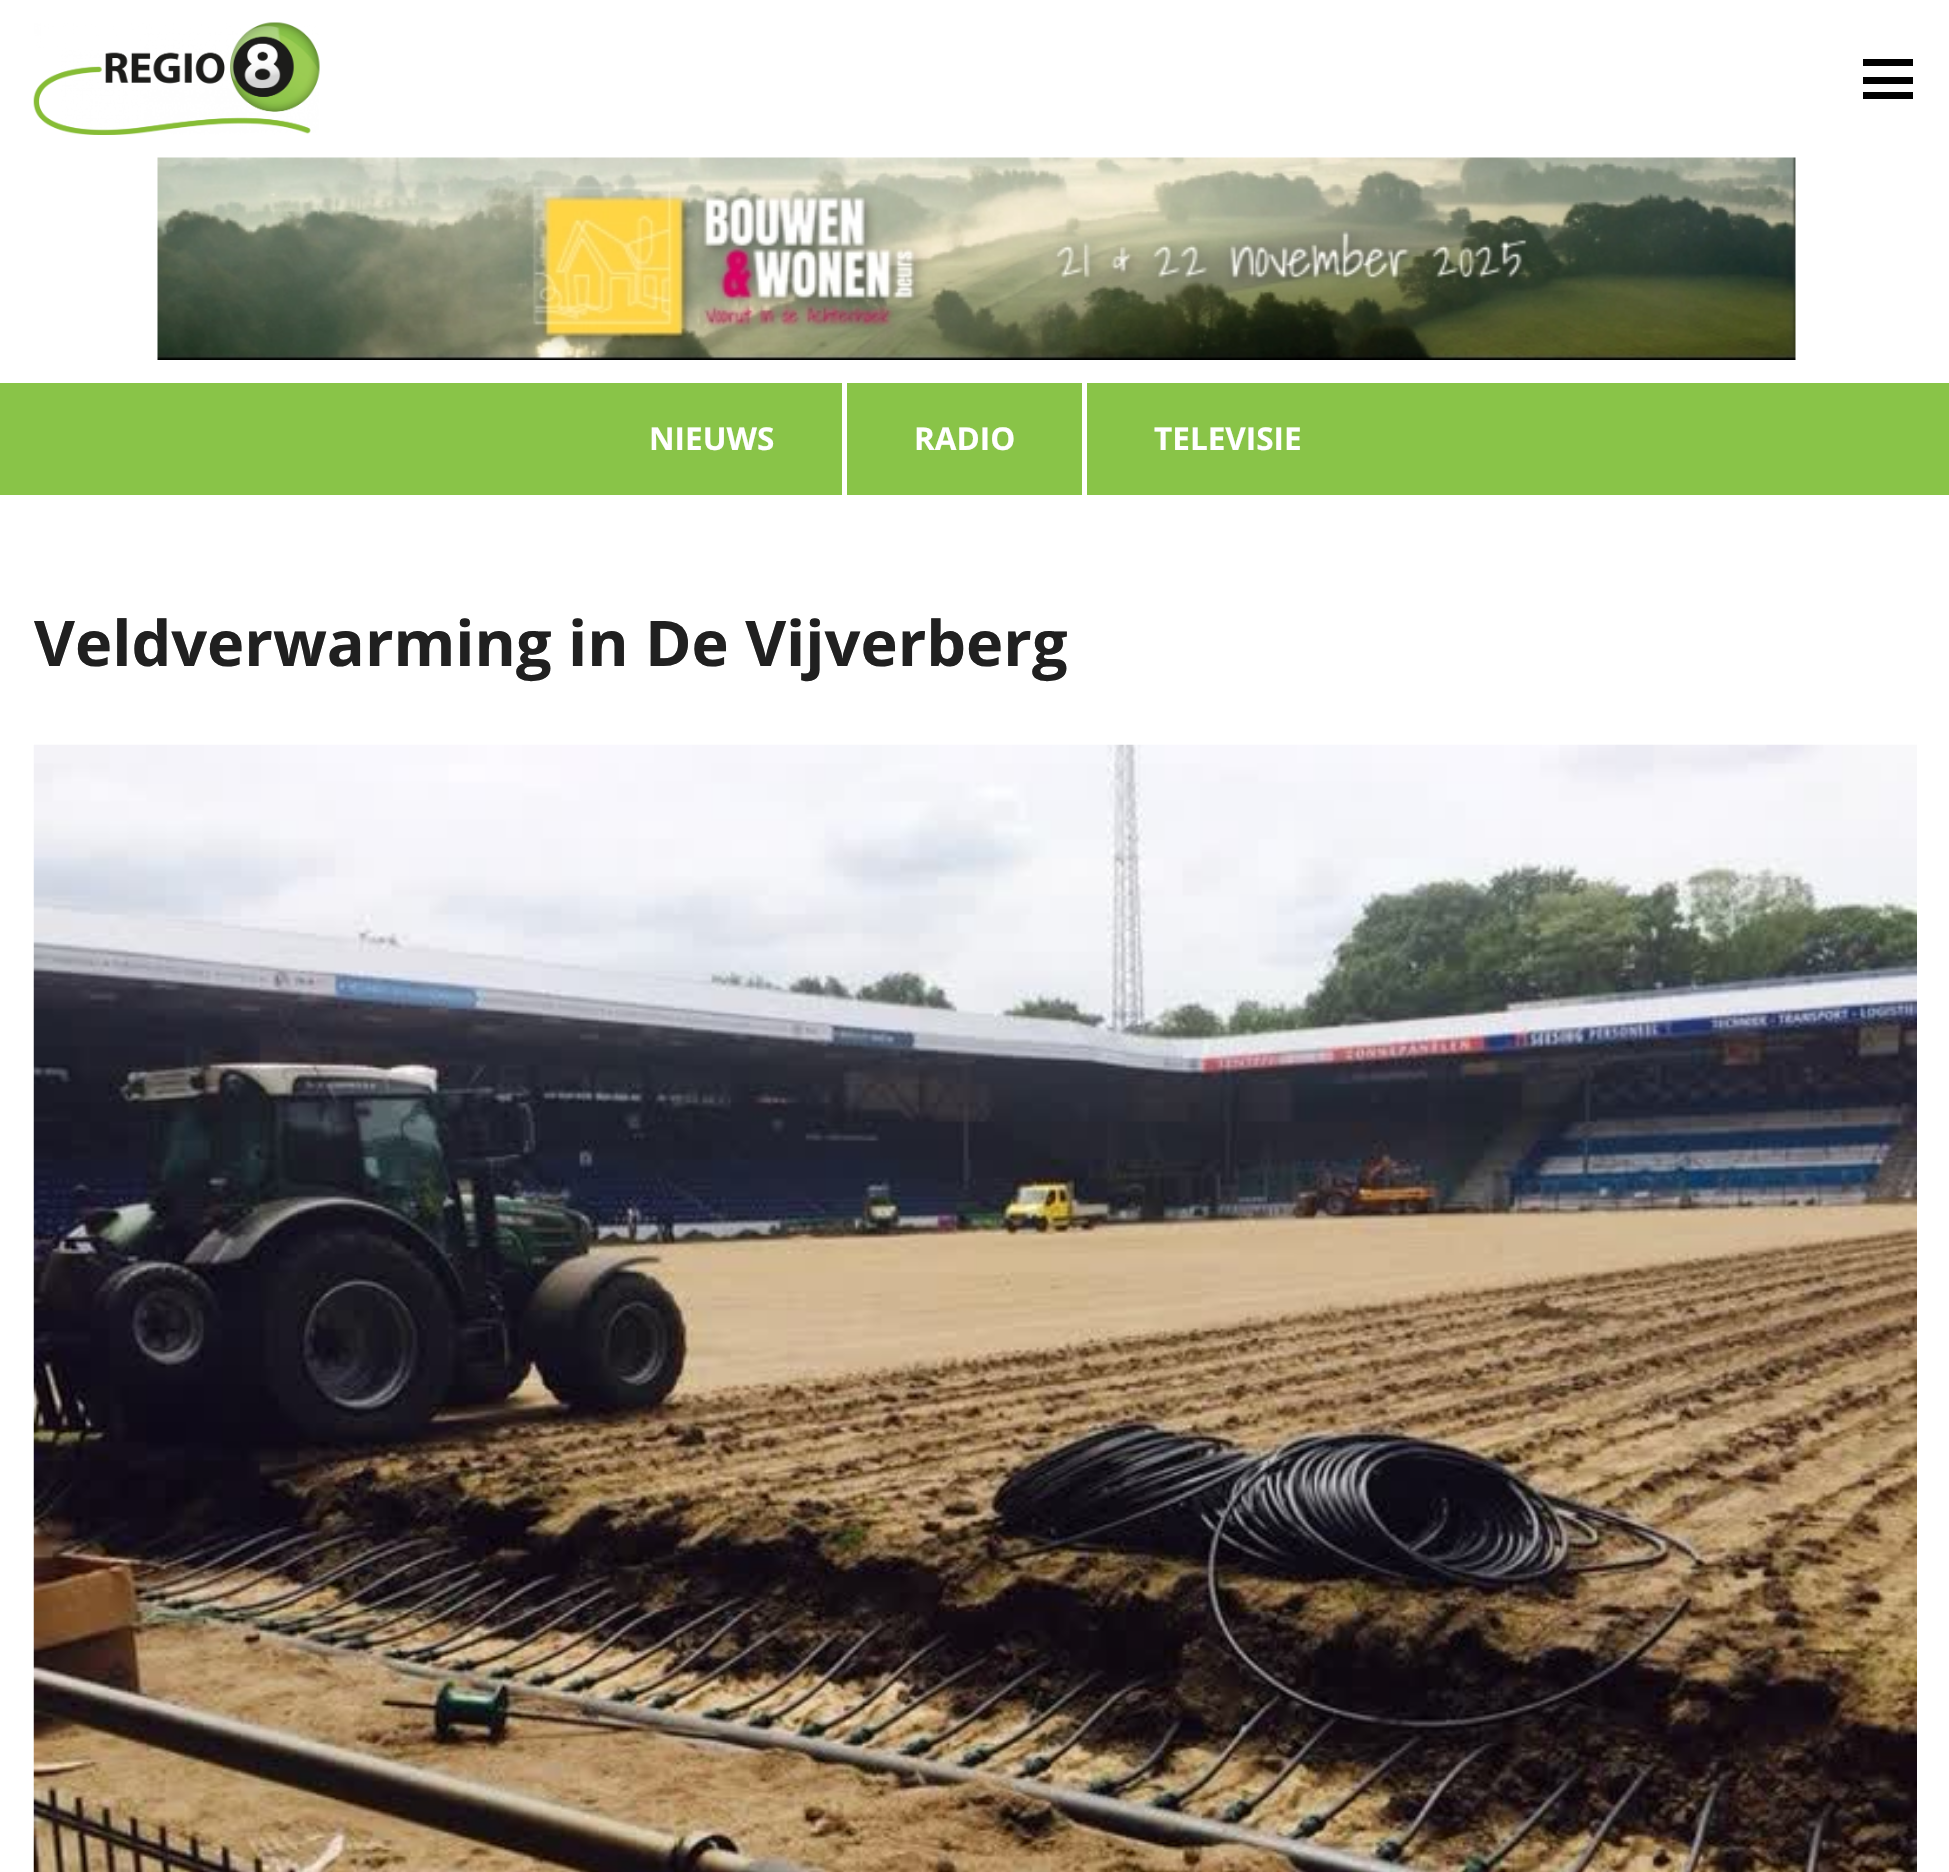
void draw(SkCanvas* canvas) {
    SkPaint paint;
    paint.setAntiAlias(true);
    canvas->clear(0xFFFFFFFF);
    canvas->drawImageRect(SkImages::DeferredFromEncodedData(SkData::MakeFromFileName("img1.png")), SkRect::MakeXYWH(33, 22, 287, 113), SkSamplingOptions());
    paint.setColor(0xFF000000);
    canvas->drawRect(SkRect::MakeXYWH(1863, 59, 50, 7), paint);
    canvas->drawRect(SkRect::MakeXYWH(1863, 77, 50, 7), paint);
    canvas->drawRect(SkRect::MakeXYWH(1863, 92, 50, 7), paint);
    canvas->drawImageRect(SkImages::DeferredFromEncodedData(SkData::MakeFromFileName("img2.png")), SkRect::MakeXYWH(157, 157, 1639, 203), SkSamplingOptions());
    paint.setColor(0xFF89C448);
    canvas->drawRect(SkRect::MakeXYWH(0, 383, 1949, 112), paint);
    paint.setColor(0xFFFFFFFF);
    canvas->drawRect(SkRect::MakeXYWH(842, 383, 5, 112), paint);
    SkFont font1(fontMgr->matchFamilyStyle("Open Sans", SkFontStyle::Bold()), 31.5f);
    font1.setSubpixel(true);
    canvas->drawString("NIEUWS", 649, 450, font1, paint);
    canvas->drawRect(SkRect::MakeXYWH(1082, 383, 5, 112), paint);
    canvas->drawString("RADIO", 914, 450, font1, paint);
    canvas->drawString("TELEVISIE", 1154, 450, font1, paint);
    SkFont font2(fontMgr->matchFamilyStyle("Open Sans", SkFontStyle::Bold()), 63);
    font2.setSubpixel(true);
    paint.setColor(0xFF202020);
    canvas->drawString("Veldverwarming in De Vijverberg", 34, 666, font2, paint);
    canvas->drawImageRect(SkImages::DeferredFromEncodedData(SkData::MakeFromFileName("img3.png")), SkRect::MakeXYWH(33, 744, 1884, 1128), SkSamplingOptions());
}
